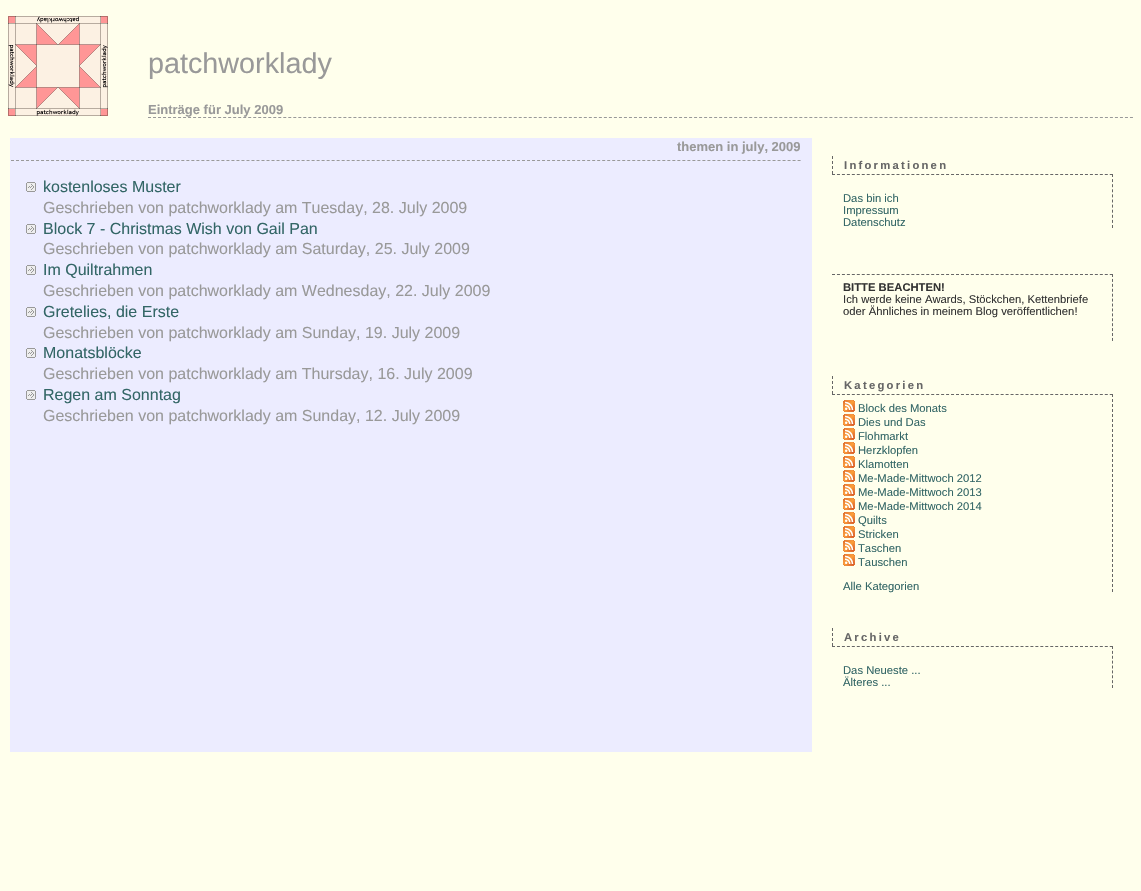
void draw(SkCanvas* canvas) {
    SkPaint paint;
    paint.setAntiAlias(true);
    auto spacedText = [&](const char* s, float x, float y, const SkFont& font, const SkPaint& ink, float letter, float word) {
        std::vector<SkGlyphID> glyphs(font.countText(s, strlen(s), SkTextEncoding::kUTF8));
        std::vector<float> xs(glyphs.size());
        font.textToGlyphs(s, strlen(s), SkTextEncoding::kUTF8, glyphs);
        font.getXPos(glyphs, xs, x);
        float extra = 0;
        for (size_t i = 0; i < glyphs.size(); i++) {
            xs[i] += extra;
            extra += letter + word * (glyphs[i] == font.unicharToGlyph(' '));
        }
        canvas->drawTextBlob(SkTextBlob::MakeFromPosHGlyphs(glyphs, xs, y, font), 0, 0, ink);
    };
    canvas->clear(0xFFFFFFEC);
    canvas->drawImageRect(SkImages::DeferredFromEncodedData(SkData::MakeFromFileName("img1.png")), SkRect::MakeXYWH(8, 16, 100, 100), SkSamplingOptions());
    SkFont font1(fontMgr->matchFamilyStyle("Liberation Sans", SkFontStyle::Normal()), 28.75f);
    font1.setSubpixel(true);
    paint.setColor(0xFF999999);
    canvas->drawString("patchworklady", 148, 73, font1, paint);
    paint.setStyle(SkPaint::kStroke_Style);
    paint.setStrokeWidth(1);
    paint.setPathEffect(SkDashPathEffect::Make({{3, 2.01f}}, 0));
    canvas->drawPath(SkPathBuilder().moveTo(148, 117.5f).lineTo(1133, 117.5f).detach(), paint);
    paint.setPathEffect(nullptr);
    SkFont font2(fontMgr->matchFamilyStyle("Liberation Sans", SkFontStyle::Bold()), 13);
    font2.setSubpixel(true);
    paint.setStyle(SkPaint::kFill_Style);
    canvas->drawString("Einträge für July 2009", 148, 114, font2, paint);
    paint.setColor(0xFFECECFF);
    canvas->drawRect(SkRect::MakeXYWH(10, 138, 802, 614), paint);
    paint.setStyle(SkPaint::kStroke_Style);
    paint.setColor(0xFF999999);
    paint.setPathEffect(SkDashPathEffect::Make({{3, 2.01f}}, 0));
    canvas->drawPath(SkPathBuilder().moveTo(11, 160.5f).lineTo(801, 160.5f).detach(), paint);
    paint.setPathEffect(nullptr);
    paint.setStyle(SkPaint::kFill_Style);
    canvas->drawString("themen in july, 2009", 677, 151, font2, paint);
    canvas->drawImageRect(SkImages::DeferredFromEncodedData(SkData::MakeFromFileName("img2.png")), SkRect::MakeXYWH(26, 182, 10, 10), SkSamplingOptions());
    SkFont font3(fontMgr->matchFamilyStyle("Liberation Sans", SkFontStyle::Normal()), 16);
    font3.setSubpixel(true);
    paint.setColor(0xFF336666);
    canvas->drawString("kostenloses Muster", 43, 192, font3, paint);
    paint.setColor(0xFF999999);
    canvas->drawString("Geschrieben von patchworklady am Tuesday, 28. July 2009", 43, 213, font3, paint);
    canvas->drawImageRect(SkImages::DeferredFromEncodedData(SkData::MakeFromFileName("img2.png")), SkRect::MakeXYWH(26, 224, 10, 10), SkSamplingOptions());
    paint.setColor(0xFF336666);
    canvas->drawString("Block 7 - Christmas Wish von Gail Pan", 43, 234, font3, paint);
    paint.setColor(0xFF999999);
    canvas->drawString("Geschrieben von patchworklady am Saturday, 25. July 2009", 43, 254, font3, paint);
    canvas->drawImageRect(SkImages::DeferredFromEncodedData(SkData::MakeFromFileName("img2.png")), SkRect::MakeXYWH(26, 265, 10, 10), SkSamplingOptions());
    paint.setColor(0xFF336666);
    canvas->drawString("Im Quiltrahmen", 43, 275, font3, paint);
    paint.setColor(0xFF999999);
    canvas->drawString("Geschrieben von patchworklady am Wednesday, 22. July 2009", 43, 296, font3, paint);
    canvas->drawImageRect(SkImages::DeferredFromEncodedData(SkData::MakeFromFileName("img2.png")), SkRect::MakeXYWH(26, 307, 10, 10), SkSamplingOptions());
    paint.setColor(0xFF336666);
    canvas->drawString("Gretelies, die Erste", 43, 317, font3, paint);
    paint.setColor(0xFF999999);
    canvas->drawString("Geschrieben von patchworklady am Sunday, 19. July 2009", 43, 338, font3, paint);
    canvas->drawImageRect(SkImages::DeferredFromEncodedData(SkData::MakeFromFileName("img2.png")), SkRect::MakeXYWH(26, 348, 10, 10), SkSamplingOptions());
    paint.setColor(0xFF336666);
    canvas->drawString("Monatsblöcke", 43, 358, font3, paint);
    paint.setColor(0xFF999999);
    canvas->drawString("Geschrieben von patchworklady am Thursday, 16. July 2009", 43, 379, font3, paint);
    canvas->drawImageRect(SkImages::DeferredFromEncodedData(SkData::MakeFromFileName("img2.png")), SkRect::MakeXYWH(26, 390, 10, 10), SkSamplingOptions());
    paint.setColor(0xFF336666);
    canvas->drawString("Regen am Sonntag", 43, 400, font3, paint);
    paint.setColor(0xFF999999);
    canvas->drawString("Geschrieben von patchworklady am Sunday, 12. July 2009", 43, 421, font3, paint);
    paint.setStyle(SkPaint::kStroke_Style);
    paint.setColor(0xFF666666);
    paint.setPathEffect(SkDashPathEffect::Make({{3, 2}}, 0));
    canvas->drawPath(SkPathBuilder().moveTo(832.5f, 156).lineTo(832.5f, 174).detach(), paint);
    paint.setPathEffect(nullptr);
    SkFont font4(fontMgr->matchFamilyStyle("Liberation Sans", SkFontStyle::Bold()), 11.25f);
    font4.setSubpixel(true);
    paint.setStyle(SkPaint::kFill_Style);
    spacedText("Informationen", 844, 169, font4, paint, 2.25f, 0);
    paint.setStyle(SkPaint::kStroke_Style);
    paint.setPathEffect(SkDashPathEffect::Make({{3, 1.96f}}, 0));
    canvas->drawPath(SkPathBuilder().moveTo(832, 174.5f).lineTo(1113, 174.5f).detach(), paint);
    paint.setPathEffect(nullptr);
    paint.setPathEffect(SkDashPathEffect::Make({{3, 2.1f}}, 0));
    canvas->drawPath(SkPathBuilder().moveTo(1112.5f, 174).lineTo(1112.5f, 228).detach(), paint);
    paint.setPathEffect(nullptr);
    SkFont font5(fontMgr->matchFamilyStyle("Liberation Sans", SkFontStyle::Normal()), 11.25f);
    font5.setSubpixel(true);
    paint.setStyle(SkPaint::kFill_Style);
    paint.setColor(0xFF336666);
    canvas->drawString("Das bin ich", 843, 202, font5, paint);
    canvas->drawString("Impressum", 843, 214, font5, paint);
    canvas->drawString("Datenschutz", 843, 226, font5, paint);
    paint.setStyle(SkPaint::kStroke_Style);
    paint.setColor(0xFF666666);
    paint.setPathEffect(SkDashPathEffect::Make({{3, 1.96f}}, 0));
    canvas->drawPath(SkPathBuilder().moveTo(832, 274.5f).lineTo(1113, 274.5f).detach(), paint);
    paint.setPathEffect(nullptr);
    paint.setPathEffect(SkDashPathEffect::Make({{3, 1.92f}}, 0));
    canvas->drawPath(SkPathBuilder().moveTo(1112.5f, 274).lineTo(1112.5f, 341).detach(), paint);
    paint.setPathEffect(nullptr);
    paint.setStyle(SkPaint::kFill_Style);
    paint.setColor(0xFF333333);
    canvas->drawString("BITTE BEACHTEN!", 843, 291, font4, paint);
    canvas->drawString("Ich werde keine Awards, Stöckchen, Kettenbriefe", 843, 303, font5, paint);
    canvas->drawString("oder Ähnliches in meinem Blog veröffentlichen!", 843, 315, font5, paint);
    paint.setStyle(SkPaint::kStroke_Style);
    paint.setColor(0xFF666666);
    paint.setPathEffect(SkDashPathEffect::Make({{3, 2}}, 0));
    canvas->drawPath(SkPathBuilder().moveTo(832.5f, 376).lineTo(832.5f, 394).detach(), paint);
    paint.setPathEffect(nullptr);
    paint.setStyle(SkPaint::kFill_Style);
    spacedText("Kategorien", 844, 389, font4, paint, 2.25f, 0);
    paint.setStyle(SkPaint::kStroke_Style);
    paint.setPathEffect(SkDashPathEffect::Make({{3, 1.96f}}, 0));
    canvas->drawPath(SkPathBuilder().moveTo(832, 394.5f).lineTo(1113, 394.5f).detach(), paint);
    paint.setPathEffect(nullptr);
    paint.setPathEffect(SkDashPathEffect::Make({{3, 2}}, 0));
    canvas->drawPath(SkPathBuilder().moveTo(1112.5f, 394).lineTo(1112.5f, 592).detach(), paint);
    paint.setPathEffect(nullptr);
    canvas->drawImageRect(SkImages::DeferredFromEncodedData(SkData::MakeFromFileName("img3.png")), SkRect::MakeXYWH(843, 400, 12, 12), SkSamplingOptions());
    paint.setStyle(SkPaint::kFill_Style);
    paint.setColor(0xFF336666);
    canvas->drawString("Block des Monats", 858, 412, font5, paint);
    canvas->drawImageRect(SkImages::DeferredFromEncodedData(SkData::MakeFromFileName("img3.png")), SkRect::MakeXYWH(843, 414, 12, 12), SkSamplingOptions());
    canvas->drawString("Dies und Das", 858, 426, font5, paint);
    canvas->drawImageRect(SkImages::DeferredFromEncodedData(SkData::MakeFromFileName("img3.png")), SkRect::MakeXYWH(843, 428, 12, 12), SkSamplingOptions());
    canvas->drawString("Flohmarkt", 858, 440, font5, paint);
    canvas->drawImageRect(SkImages::DeferredFromEncodedData(SkData::MakeFromFileName("img3.png")), SkRect::MakeXYWH(843, 442, 12, 12), SkSamplingOptions());
    canvas->drawString("Herzklopfen", 858, 454, font5, paint);
    canvas->drawImageRect(SkImages::DeferredFromEncodedData(SkData::MakeFromFileName("img3.png")), SkRect::MakeXYWH(843, 456, 12, 12), SkSamplingOptions());
    canvas->drawString("Klamotten", 858, 468, font5, paint);
    canvas->drawImageRect(SkImages::DeferredFromEncodedData(SkData::MakeFromFileName("img3.png")), SkRect::MakeXYWH(843, 470, 12, 12), SkSamplingOptions());
    canvas->drawString("Me-Made-Mittwoch 2012", 858, 482, font5, paint);
    canvas->drawImageRect(SkImages::DeferredFromEncodedData(SkData::MakeFromFileName("img3.png")), SkRect::MakeXYWH(843, 484, 12, 12), SkSamplingOptions());
    canvas->drawString("Me-Made-Mittwoch 2013", 858, 496, font5, paint);
    canvas->drawImageRect(SkImages::DeferredFromEncodedData(SkData::MakeFromFileName("img3.png")), SkRect::MakeXYWH(843, 498, 12, 12), SkSamplingOptions());
    canvas->drawString("Me-Made-Mittwoch 2014", 858, 510, font5, paint);
    canvas->drawImageRect(SkImages::DeferredFromEncodedData(SkData::MakeFromFileName("img3.png")), SkRect::MakeXYWH(843, 512, 12, 12), SkSamplingOptions());
    canvas->drawString("Quilts", 858, 524, font5, paint);
    canvas->drawImageRect(SkImages::DeferredFromEncodedData(SkData::MakeFromFileName("img3.png")), SkRect::MakeXYWH(843, 526, 12, 12), SkSamplingOptions());
    canvas->drawString("Stricken", 858, 538, font5, paint);
    canvas->drawImageRect(SkImages::DeferredFromEncodedData(SkData::MakeFromFileName("img3.png")), SkRect::MakeXYWH(843, 540, 12, 12), SkSamplingOptions());
    canvas->drawString("Taschen", 858, 552, font5, paint);
    canvas->drawImageRect(SkImages::DeferredFromEncodedData(SkData::MakeFromFileName("img3.png")), SkRect::MakeXYWH(843, 554, 12, 12), SkSamplingOptions());
    canvas->drawString("Tauschen", 858, 566, font5, paint);
    canvas->drawString("Alle Kategorien", 843, 590, font5, paint);
    paint.setStyle(SkPaint::kStroke_Style);
    paint.setColor(0xFF666666);
    paint.setPathEffect(SkDashPathEffect::Make({{3, 2}}, 0));
    canvas->drawPath(SkPathBuilder().moveTo(832.5f, 628).lineTo(832.5f, 646).detach(), paint);
    paint.setPathEffect(nullptr);
    paint.setStyle(SkPaint::kFill_Style);
    spacedText("Archive", 844, 641, font4, paint, 2.25f, 0);
    paint.setStyle(SkPaint::kStroke_Style);
    paint.setPathEffect(SkDashPathEffect::Make({{3, 1.96f}}, 0));
    canvas->drawPath(SkPathBuilder().moveTo(832, 646.5f).lineTo(1113, 646.5f).detach(), paint);
    paint.setPathEffect(nullptr);
    paint.setPathEffect(SkDashPathEffect::Make({{3, 1.88f}}, 0));
    canvas->drawPath(SkPathBuilder().moveTo(1112.5f, 646).lineTo(1112.5f, 688).detach(), paint);
    paint.setPathEffect(nullptr);
    paint.setStyle(SkPaint::kFill_Style);
    paint.setColor(0xFF336666);
    canvas->drawString("Das Neueste ...", 843, 674, font5, paint);
    canvas->drawString("Älteres ...", 843, 686, font5, paint);
}
